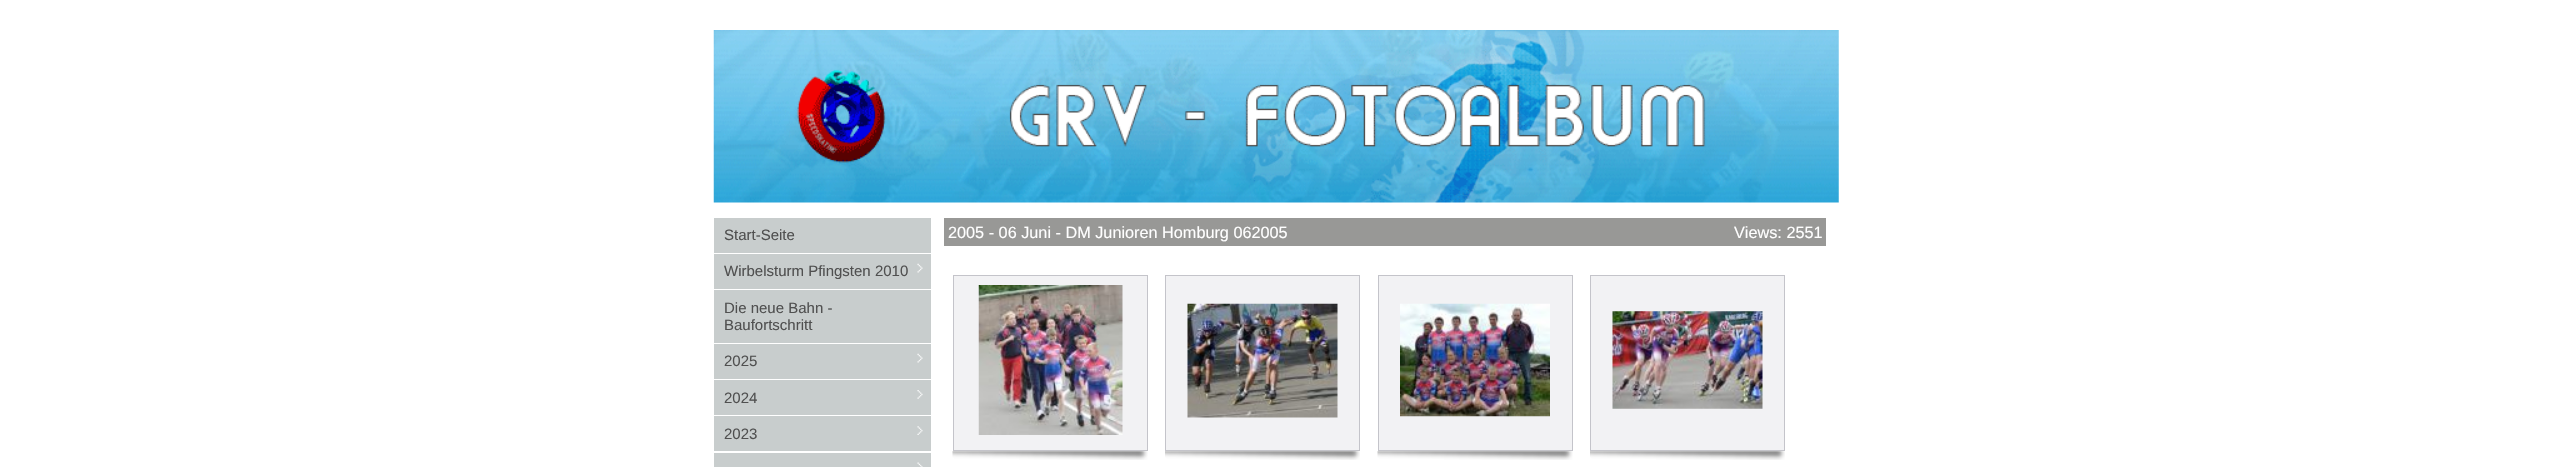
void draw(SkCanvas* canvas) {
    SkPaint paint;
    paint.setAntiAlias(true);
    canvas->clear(0xFFFFFFFF);
    canvas->drawImageRect(SkImages::DeferredFromEncodedData(SkData::MakeFromFileName("img1.png")), SkRect::MakeXYWH(713, 30, 1126, 173), SkSamplingOptions());
    paint.setColor(0xFFC8CDCD);
    canvas->drawRect(SkRect::MakeXYWH(714, 218, 217, 35), paint);
    SkFont font1(fontMgr->matchFamilyStyle("Liberation Sans", SkFontStyle::Normal()), 15);
    font1.setSubpixel(true);
    paint.setColor(0xFF505050);
    canvas->drawString("Start-Seite", 724, 240, font1, paint);
    paint.setColor(0xFFC8CDCD);
    canvas->drawRect(SkRect::MakeXYWH(714, 254, 217, 35), paint);
    paint.setColor(0xFF505050);
    canvas->drawString("Wirbelsturm Pfingsten 2010", 724, 276, font1, paint);
    canvas->drawImageRect(SkImages::DeferredFromEncodedData(SkData::MakeFromFileName("img2.png")), SkRect::MakeXYWH(917, 263, 6, 10), SkSamplingOptions());
    paint.setColor(0xFFC8CDCD);
    canvas->drawRect(SkRect::MakeXYWH(714, 290, 217, 53), paint);
    paint.setColor(0xFF505050);
    canvas->drawString("Die neue Bahn -", 724, 313, font1, paint);
    canvas->drawString("Baufortschritt", 724, 330, font1, paint);
    paint.setColor(0xFFC8CDCD);
    canvas->drawRect(SkRect::MakeXYWH(714, 344, 217, 35), paint);
    paint.setColor(0xFF505050);
    canvas->drawString("2025", 724, 366, font1, paint);
    canvas->drawImageRect(SkImages::DeferredFromEncodedData(SkData::MakeFromFileName("img2.png")), SkRect::MakeXYWH(917, 353, 6, 10), SkSamplingOptions());
    paint.setColor(0xFFC8CDCD);
    canvas->drawRect(SkRect::MakeXYWH(714, 380, 217, 35), paint);
    paint.setColor(0xFF505050);
    canvas->drawString("2024", 724, 403, font1, paint);
    canvas->drawImageRect(SkImages::DeferredFromEncodedData(SkData::MakeFromFileName("img3.png")), SkRect::MakeXYWH(917, 390, 6, 9), SkSamplingOptions());
    paint.setColor(0xFFC8CDCD);
    canvas->drawRect(SkRect::MakeXYWH(714, 416, 217, 35), paint);
    paint.setColor(0xFF505050);
    canvas->drawString("2023", 724, 439, font1, paint);
    canvas->drawImageRect(SkImages::DeferredFromEncodedData(SkData::MakeFromFileName("img4.png")), SkRect::MakeXYWH(917, 426, 6, 9), SkSamplingOptions());
    paint.setColor(0xFFC8CDCD);
    canvas->drawRect(SkRect::MakeXYWH(714, 453, 217, 14), paint);
    canvas->drawImageRect(SkImages::DeferredFromEncodedData(SkData::MakeFromFileName("img5.png")), SkRect::MakeXYWH(917, 462, 6, 5), SkSamplingOptions());
    paint.setColor(0xFF989896);
    canvas->drawRect(SkRect::MakeXYWH(944, 218, 882, 28), paint);
    SkFont font2(fontMgr->matchFamilyStyle("Liberation Sans", SkFontStyle::Normal()), 16.25f);
    font2.setSubpixel(true);
    paint.setColor(0xFFFFFFFF);
    canvas->drawString("2005 - 06 Juni - DM Junioren Homburg 062005", 948, 238, font2, paint);
    canvas->drawString("Views: 2551", 1734, 238, font2, paint);
    canvas->drawImageRect(SkImages::DeferredFromEncodedData(SkData::MakeFromFileName("img6.png")), SkRect::MakeXYWH(952, 451, 196, 9), SkSamplingOptions());
    paint.setColor(0xFFF2F2F4);
    canvas->drawRect(SkRect::MakeXYWH(953.5f, 275.5f, 194, 175), paint);
    paint.setStyle(SkPaint::kStroke_Style);
    paint.setStrokeWidth(1);
    paint.setColor(0xFFC4C4CA);
    canvas->drawRect(SkRect::MakeXYWH(953.5f, 275.5f, 194, 175), paint);
    canvas->drawImageRect(SkImages::DeferredFromEncodedData(SkData::MakeFromFileName("img7.png")), SkRect::MakeXYWH(978, 285, 145, 150), SkSamplingOptions());
    canvas->drawImageRect(SkImages::DeferredFromEncodedData(SkData::MakeFromFileName("img8.png")), SkRect::MakeXYWH(1165, 451, 195, 9), SkSamplingOptions());
    paint.setStyle(SkPaint::kFill_Style);
    paint.setColor(0xFFF2F2F4);
    canvas->drawRect(SkRect::MakeXYWH(1165.5f, 275.5f, 194, 175), paint);
    paint.setStyle(SkPaint::kStroke_Style);
    paint.setColor(0xFFC4C4CA);
    canvas->drawRect(SkRect::MakeXYWH(1165.5f, 275.5f, 194, 175), paint);
    canvas->drawImageRect(SkImages::DeferredFromEncodedData(SkData::MakeFromFileName("img9.png")), SkRect::MakeXYWH(1187, 303, 151, 115), SkSamplingOptions());
    canvas->drawImageRect(SkImages::DeferredFromEncodedData(SkData::MakeFromFileName("img10.png")), SkRect::MakeXYWH(1377, 451, 196, 9), SkSamplingOptions());
    paint.setStyle(SkPaint::kFill_Style);
    paint.setColor(0xFFF2F2F4);
    canvas->drawRect(SkRect::MakeXYWH(1378.5f, 275.5f, 194, 175), paint);
    paint.setStyle(SkPaint::kStroke_Style);
    paint.setColor(0xFFC4C4CA);
    canvas->drawRect(SkRect::MakeXYWH(1378.5f, 275.5f, 194, 175), paint);
    canvas->drawImageRect(SkImages::DeferredFromEncodedData(SkData::MakeFromFileName("img11.png")), SkRect::MakeXYWH(1400, 303, 150, 114), SkSamplingOptions());
    canvas->drawImageRect(SkImages::DeferredFromEncodedData(SkData::MakeFromFileName("img8.png")), SkRect::MakeXYWH(1590, 451, 195, 9), SkSamplingOptions());
    paint.setStyle(SkPaint::kFill_Style);
    paint.setColor(0xFFF2F2F4);
    canvas->drawRect(SkRect::MakeXYWH(1590.5f, 275.5f, 194, 175), paint);
    paint.setStyle(SkPaint::kStroke_Style);
    paint.setColor(0xFFC4C4CA);
    canvas->drawRect(SkRect::MakeXYWH(1590.5f, 275.5f, 194, 175), paint);
    canvas->drawImageRect(SkImages::DeferredFromEncodedData(SkData::MakeFromFileName("img12.png")), SkRect::MakeXYWH(1612, 311, 151, 98), SkSamplingOptions());
}
